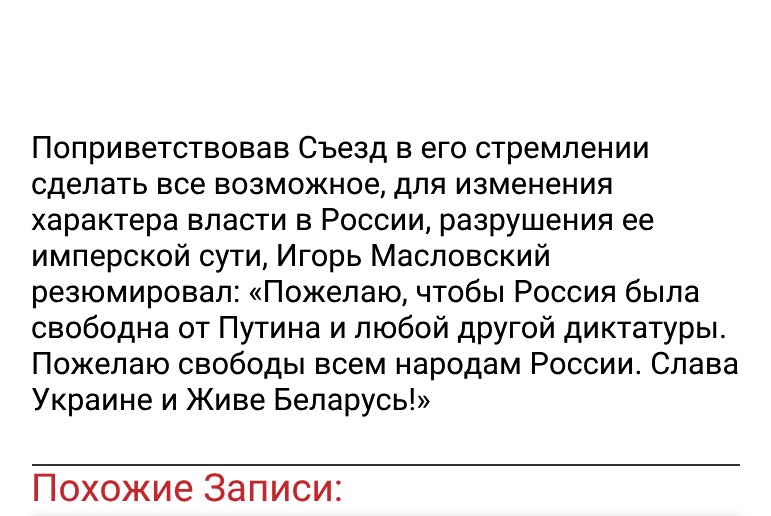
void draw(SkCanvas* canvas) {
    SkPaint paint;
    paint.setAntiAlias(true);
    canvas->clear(0xFFFFFFFF);
    SkFont font1(fontMgr->matchFamilyStyle("Roboto", SkFontStyle::Normal()), 30.8f);
    font1.setSubpixel(true);
    paint.setColor(0xFF000000);
    canvas->drawString("Поприветствовав Съезд в его стремлении", 31, 158, font1, paint);
    canvas->drawString("сделать все возможное, для изменения", 31, 194, font1, paint);
    canvas->drawString("характера власти в России, разрушения ее", 31, 230, font1, paint);
    canvas->drawString("имперской сути, Игорь Масловский", 31, 266, font1, paint);
    canvas->drawString("резюмировал: «Пожелаю, чтобы Россия была", 31, 302, font1, paint);
    canvas->drawString("свободна от Путина и любой другой диктатуры.", 31, 338, font1, paint);
    canvas->drawString("Пожелаю свободы всем народам России. Слава", 31, 374, font1, paint);
    canvas->drawString("Украине и Живе Беларусь!»", 31, 410, font1, paint);
    paint.setColor(0xFF333333);
    canvas->drawRect(SkRect::MakeXYWH(32, 464, 708, 2), paint);
    SkFont font2(fontMgr->matchFamilyStyle("Roboto", SkFontStyle::Normal()), 38.5f);
    font2.setSubpixel(true);
    paint.setColor(0xFFC1272D);
    canvas->drawString("Похожие Записи:", 31, 501, font2, paint);
    paint.setColor(0xFFCACACA);
    paint.setMaskFilter(SkMaskFilter::MakeBlur(kNormal_SkBlurStyle, 5));
    canvas->drawRect(SkRect::MakeXYWH(32, 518, 708, 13), paint);
    paint.setMaskFilter(nullptr);
}
